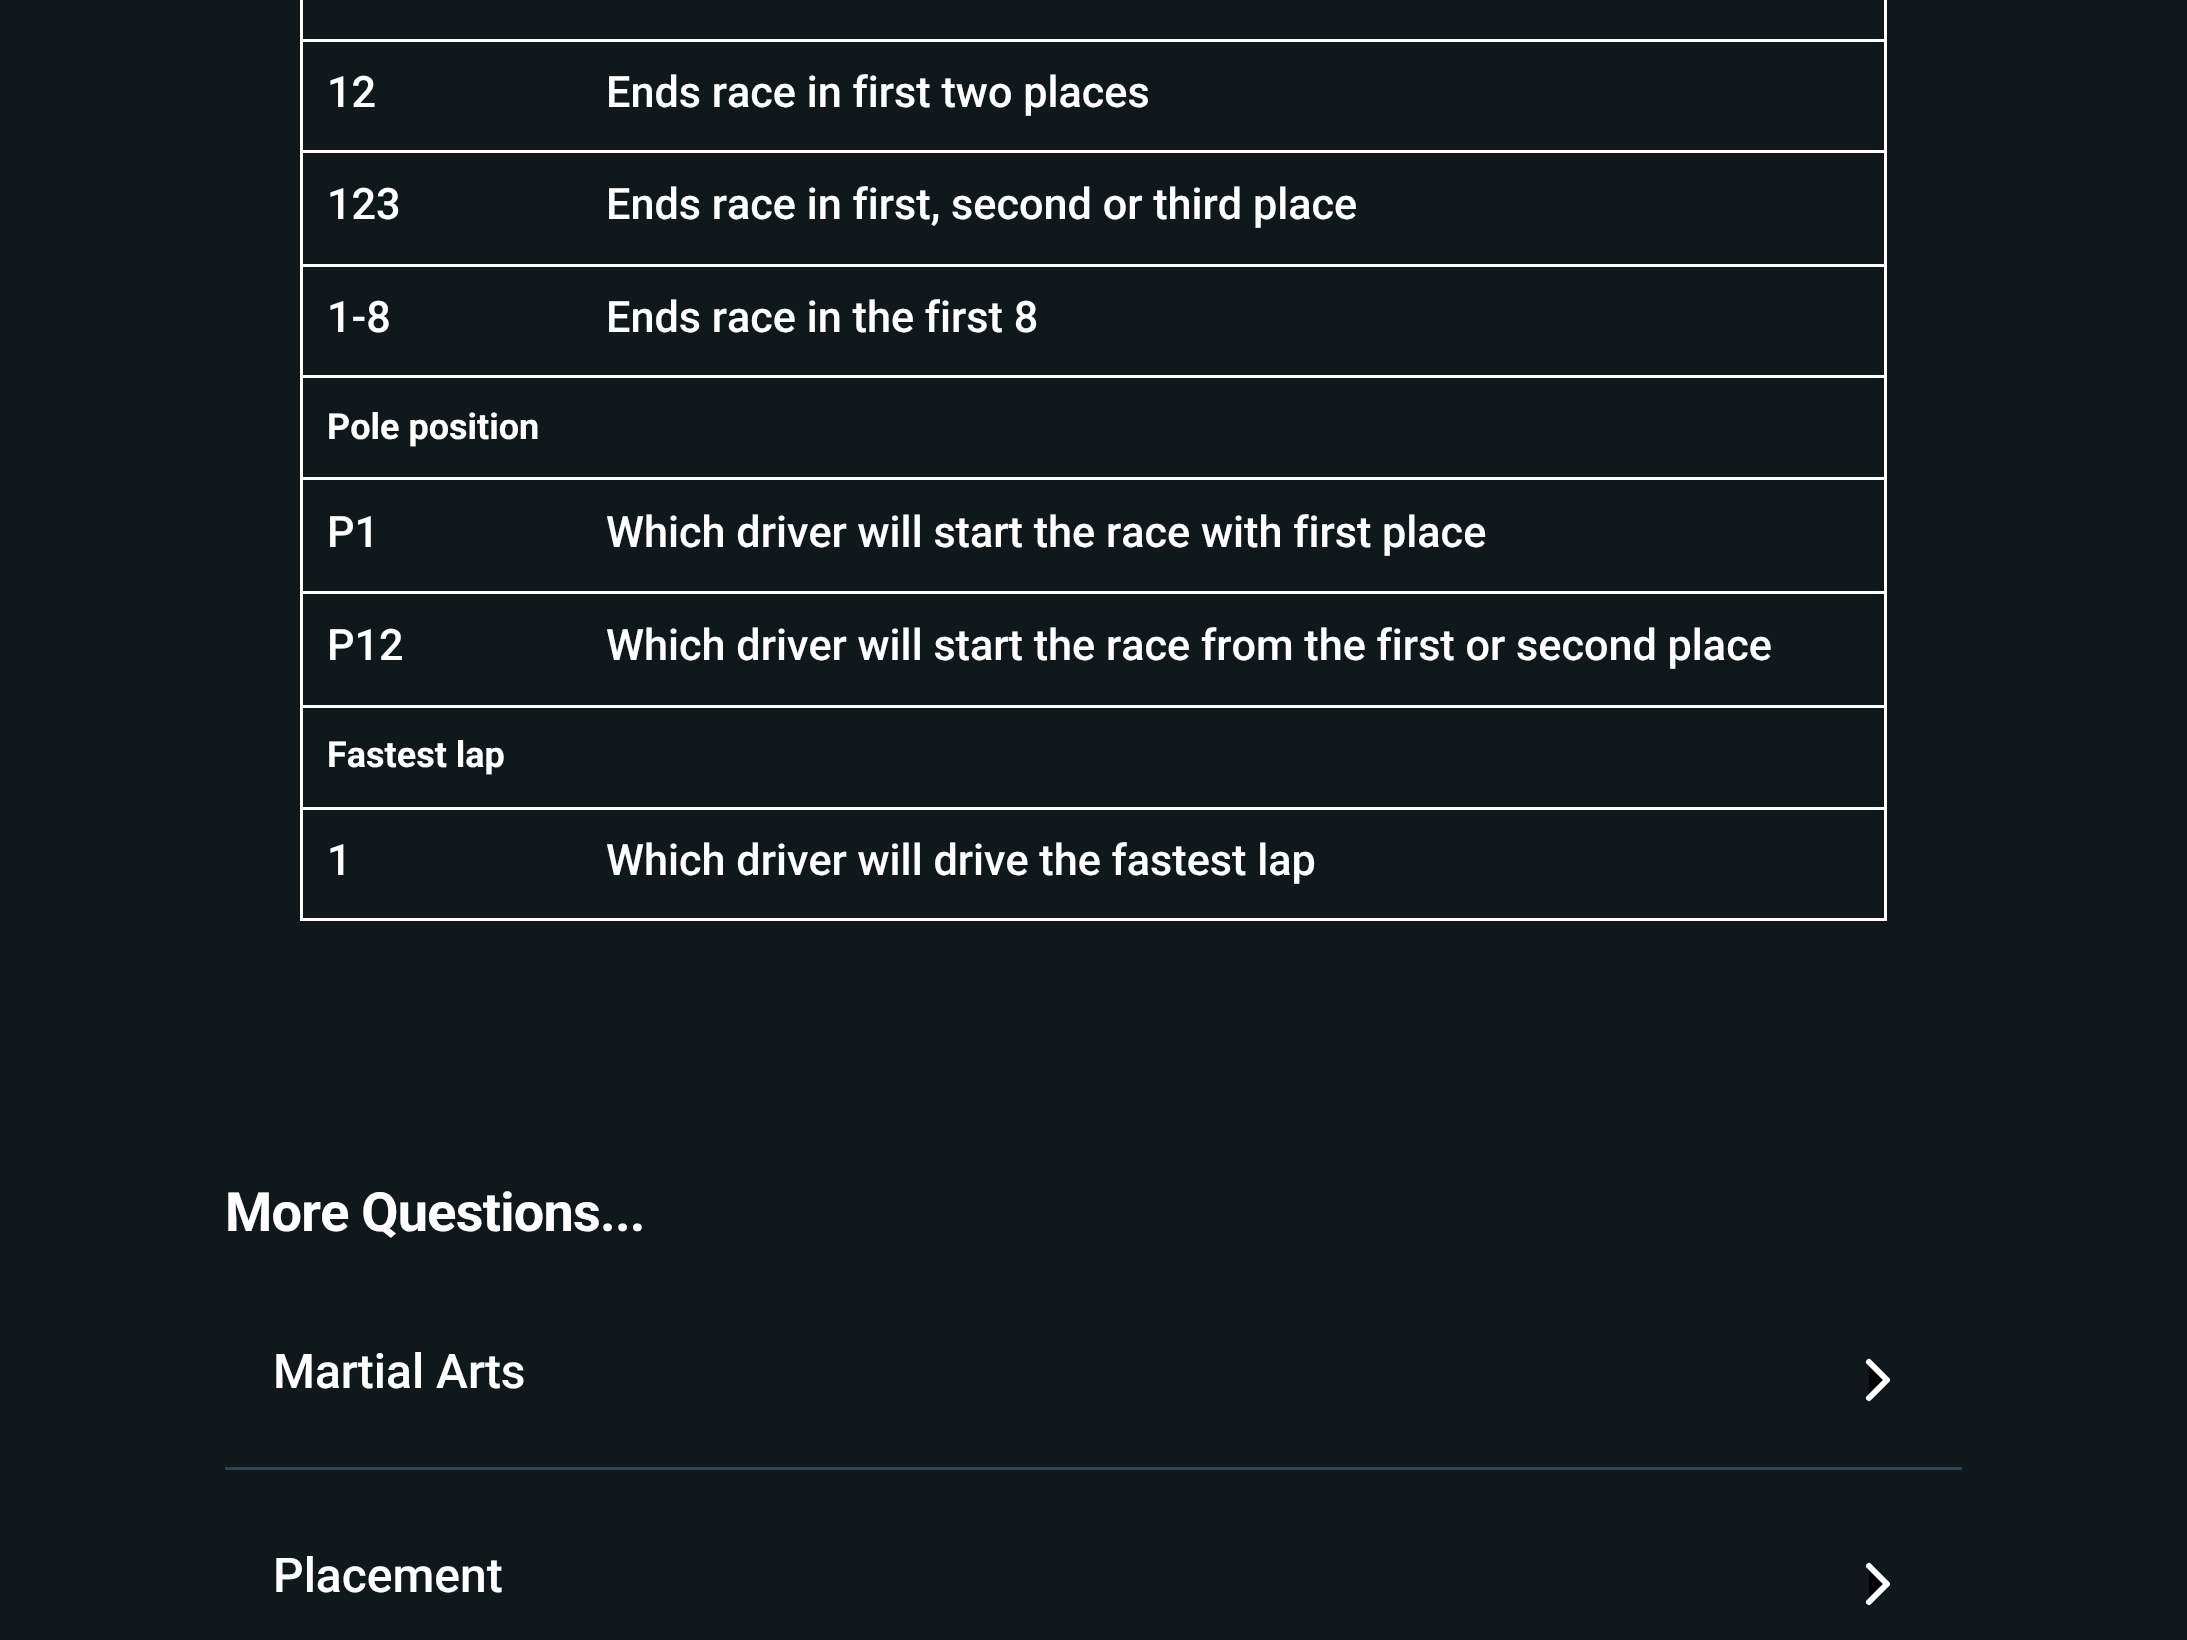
void draw(SkCanvas* canvas) {
    SkPaint paint;
    paint.setAntiAlias(true);
    auto spacedText = [&](const char* s, float x, float y, const SkFont& font, const SkPaint& ink, float letter, float word) {
        std::vector<SkGlyphID> glyphs(font.countText(s, strlen(s), SkTextEncoding::kUTF8));
        std::vector<float> xs(glyphs.size());
        font.textToGlyphs(s, strlen(s), SkTextEncoding::kUTF8, glyphs);
        font.getXPos(glyphs, xs, x);
        float extra = 0;
        for (size_t i = 0; i < glyphs.size(); i++) {
            xs[i] += extra;
            extra += letter + word * (glyphs[i] == font.unicharToGlyph(' '));
        }
        canvas->drawTextBlob(SkTextBlob::MakeFromPosHGlyphs(glyphs, xs, y, font), 0, 0, ink);
    };
    canvas->clear(0xFF10181C);
    paint.setColor(0xFFFFFFFF);
    canvas->drawRect(SkRect::MakeXYWH(1884, 0, 3, 921), paint);
    canvas->drawRect(SkRect::MakeXYWH(300, 918, 1587, 3), paint);
    canvas->drawRect(SkRect::MakeXYWH(300, 0, 3, 921), paint);
    SkFont font1(fontMgr->matchFamilyStyle("Roboto", SkFontStyle(500, SkFontStyle::kNormal_Width, SkFontStyle::kUpright_Slant)), 43.2f);
    font1.setSubpixel(true);
    canvas->drawString("12", 327, 107, font1, paint);
    canvas->drawRect(SkRect::MakeXYWH(300, 39, 1587, 3), paint);
    canvas->drawString("Ends race in first two places", 606, 107, font1, paint);
    canvas->drawString("123", 327, 219, font1, paint);
    canvas->drawRect(SkRect::MakeXYWH(300, 150, 1587, 3), paint);
    canvas->drawString("Ends race in first, second or third place", 606, 219, font1, paint);
    canvas->drawString("1-8", 327, 332, font1, paint);
    canvas->drawRect(SkRect::MakeXYWH(300, 264, 1587, 3), paint);
    canvas->drawString("Ends race in the first 8", 606, 332, font1, paint);
    canvas->drawRect(SkRect::MakeXYWH(300, 375, 1587, 3), paint);
    SkFont font2(fontMgr->matchFamilyStyle("Roboto", SkFontStyle::Bold()), 36);
    font2.setSubpixel(true);
    canvas->drawString("Pole position", 327, 439, font2, paint);
    canvas->drawString("P1", 327, 547, font1, paint);
    canvas->drawRect(SkRect::MakeXYWH(300, 477, 1587, 3), paint);
    canvas->drawString("Which driver will start the race with first place", 606, 547, font1, paint);
    canvas->drawString("P12", 327, 660, font1, paint);
    canvas->drawRect(SkRect::MakeXYWH(300, 591, 1587, 3), paint);
    canvas->drawString("Which driver will start the race from the first or second place", 606, 660, font1, paint);
    canvas->drawRect(SkRect::MakeXYWH(300, 705, 1587, 3), paint);
    canvas->drawString("Fastest lap", 327, 767, font2, paint);
    canvas->drawString("1", 327, 875, font1, paint);
    canvas->drawRect(SkRect::MakeXYWH(300, 807, 1587, 3), paint);
    canvas->drawString("Which driver will drive the fastest lap", 606, 875, font1, paint);
    SkFont font3(fontMgr->matchFamilyStyle("Roboto", SkFontStyle::Bold()), 54);
    font3.setSubpixel(true);
    spacedText("More Questions...", 225, 1231, font3, paint, -0.75f, 0);
    paint.setColor(0xFF284755);
    canvas->drawRect(SkRect::MakeXYWH(225, 1467, 1737, 3), paint);
    SkFont font4(fontMgr->matchFamilyStyle("Roboto", SkFontStyle(500, SkFontStyle::kNormal_Width, SkFontStyle::kUpright_Slant)), 48);
    font4.setSubpixel(true);
    paint.setColor(0xFFFFFFFF);
    canvas->drawString("Martial Arts", 273, 1388, font4, paint);
    paint.setColor(0xFF000000);
    canvas->drawPath(SkPathBuilder().moveTo(1869, 1398).lineTo(1887, 1380).lineTo(1869, 1362).detach(), paint);
    paint.setStyle(SkPaint::kStroke_Style);
    paint.setStrokeWidth(6);
    paint.setStrokeCap(SkPaint::kRound_Cap);
    paint.setStrokeJoin(SkPaint::kRound_Join);
    paint.setColor(0xFFFFFFFF);
    canvas->drawPath(SkPathBuilder().moveTo(1869, 1398).lineTo(1887, 1380).lineTo(1869, 1362).detach(), paint);
    paint.setStyle(SkPaint::kFill_Style);
    canvas->drawString("Placement", 273, 1592, font4, paint);
    paint.setColor(0xFF000000);
    canvas->drawPath(SkPathBuilder().moveTo(1869, 1602).lineTo(1887, 1584).lineTo(1869, 1566).detach(), paint);
    paint.setStyle(SkPaint::kStroke_Style);
    paint.setColor(0xFFFFFFFF);
    canvas->drawPath(SkPathBuilder().moveTo(1869, 1602).lineTo(1887, 1584).lineTo(1869, 1566).detach(), paint);
}
